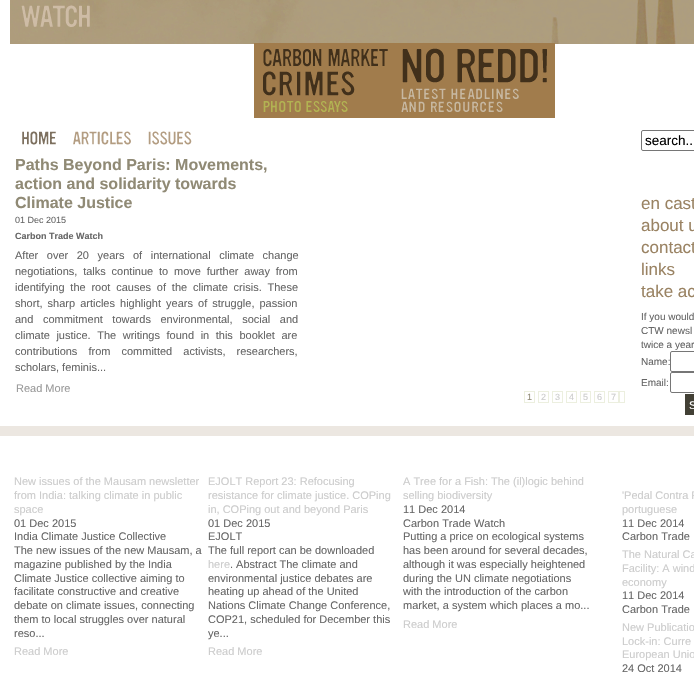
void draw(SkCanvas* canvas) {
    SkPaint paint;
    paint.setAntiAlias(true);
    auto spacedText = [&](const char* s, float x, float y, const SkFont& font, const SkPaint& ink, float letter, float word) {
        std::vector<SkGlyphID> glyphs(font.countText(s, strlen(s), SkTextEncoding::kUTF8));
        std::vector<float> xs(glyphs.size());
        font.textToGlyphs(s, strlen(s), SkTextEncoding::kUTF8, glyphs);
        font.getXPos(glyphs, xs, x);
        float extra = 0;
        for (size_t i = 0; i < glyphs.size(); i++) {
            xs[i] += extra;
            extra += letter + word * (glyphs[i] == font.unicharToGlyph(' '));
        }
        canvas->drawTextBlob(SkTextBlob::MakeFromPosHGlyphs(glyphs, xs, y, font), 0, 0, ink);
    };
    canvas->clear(0xFFECE7E1);
    paint.setColor(0xFFFFFFFF);
    canvas->drawRect(SkRect::MakeXYWH(0, 0, 694, 426), paint);
    canvas->drawImageRect(SkImages::DeferredFromEncodedData(SkData::MakeFromFileName("img1.png")), SkRect::MakeXYWH(10, 0, 684, 44), SkSamplingOptions());
    canvas->drawImageRect(SkImages::DeferredFromEncodedData(SkData::MakeFromFileName("img2.png")), SkRect::MakeXYWH(254, 43, 139, 75), SkSamplingOptions());
    canvas->drawImageRect(SkImages::DeferredFromEncodedData(SkData::MakeFromFileName("img3.png")), SkRect::MakeXYWH(393, 43, 162, 75), SkSamplingOptions());
    canvas->drawImageRect(SkImages::DeferredFromEncodedData(SkData::MakeFromFileName("img4.png")), SkRect::MakeXYWH(22, 131, 34, 14), SkSamplingOptions());
    canvas->drawImageRect(SkImages::DeferredFromEncodedData(SkData::MakeFromFileName("img5.png")), SkRect::MakeXYWH(73, 131, 58, 14), SkSamplingOptions());
    canvas->drawImageRect(SkImages::DeferredFromEncodedData(SkData::MakeFromFileName("img6.png")), SkRect::MakeXYWH(148, 131, 44, 14), SkSamplingOptions());
    SkFont font1(fontMgr->matchFamilyStyle("Liberation Sans", SkFontStyle::Bold()), 16);
    font1.setSubpixel(true);
    paint.setColor(0xFF908A75);
    canvas->drawString("Paths Beyond Paris: Movements,", 15, 170, font1, paint);
    canvas->drawString("action and solidarity towards", 15, 189, font1, paint);
    canvas->drawString("Climate Justice", 15, 208, font1, paint);
    SkFont font2(fontMgr->matchFamilyStyle("Liberation Sans", SkFontStyle::Normal()), 9);
    font2.setSubpixel(true);
    paint.setColor(0xFF666666);
    canvas->drawString("01 Dec 2015", 15, 223, font2, paint);
    SkFont font3(fontMgr->matchFamilyStyle("Liberation Sans", SkFontStyle::Bold()), 9);
    font3.setSubpixel(true);
    canvas->drawString("Carbon Trade Watch", 15, 239, font3, paint);
    SkFont font4(fontMgr->matchFamilyStyle("Liberation Sans", SkFontStyle::Normal()), 11);
    font4.setSubpixel(true);
    spacedText("After over 20 years of international climate change", 15, 259, font4, paint, 0, 5.5f);
    spacedText("negotiations, talks continue to move further away from", 15, 275, font4, paint, 0, 2.75f);
    spacedText("identifying the root causes of the climate crisis. These", 15, 291, font4, paint, 0, 2.75f);
    spacedText("short, sharp articles highlight years of struggle, passion", 15, 307, font4, paint, 0, 2);
    spacedText("and commitment towards environmental, social and", 15, 323, font4, paint, 0, 6.5f);
    spacedText("climate justice. The writings found in this booklet are", 15, 339, font4, paint, 0, 3.5f);
    spacedText("contributions from committed activists, researchers,", 15, 355, font4, paint, 0, 8);
    canvas->drawString("scholars, feminis...", 15, 371, font4, paint);
    paint.setColor(0xFF999999);
    canvas->drawString("Read More", 16, 392, font4, paint);
    paint.setStyle(SkPaint::kStroke_Style);
    paint.setStrokeWidth(1);
    paint.setColor(0xFFECEFDF);
    canvas->drawRect(SkRect::MakeXYWH(524.5f, 391.5f, 10, 11), paint);
    paint.setStyle(SkPaint::kFill_Style);
    paint.setColor(0xFF908A75);
    canvas->drawString("1", 527, 400, font2, paint);
    paint.setStyle(SkPaint::kStroke_Style);
    paint.setColor(0xFFECEFDF);
    canvas->drawRect(SkRect::MakeXYWH(538.5f, 391.5f, 10, 11), paint);
    paint.setStyle(SkPaint::kFill_Style);
    paint.setColor(0xFFCCCCCC);
    canvas->drawString("2", 541, 400, font2, paint);
    paint.setStyle(SkPaint::kStroke_Style);
    paint.setColor(0xFFECEFDF);
    canvas->drawRect(SkRect::MakeXYWH(552.5f, 391.5f, 10, 11), paint);
    paint.setStyle(SkPaint::kFill_Style);
    paint.setColor(0xFFCCCCCC);
    canvas->drawString("3", 555, 400, font2, paint);
    paint.setStyle(SkPaint::kStroke_Style);
    paint.setColor(0xFFECEFDF);
    canvas->drawRect(SkRect::MakeXYWH(566.5f, 391.5f, 10, 11), paint);
    paint.setStyle(SkPaint::kFill_Style);
    paint.setColor(0xFFCCCCCC);
    canvas->drawString("4", 569, 400, font2, paint);
    paint.setStyle(SkPaint::kStroke_Style);
    paint.setColor(0xFFECEFDF);
    canvas->drawRect(SkRect::MakeXYWH(580.5f, 391.5f, 10, 11), paint);
    paint.setStyle(SkPaint::kFill_Style);
    paint.setColor(0xFFCCCCCC);
    canvas->drawString("5", 583, 400, font2, paint);
    paint.setStyle(SkPaint::kStroke_Style);
    paint.setColor(0xFFECEFDF);
    canvas->drawRect(SkRect::MakeXYWH(594.5f, 391.5f, 10, 11), paint);
    paint.setStyle(SkPaint::kFill_Style);
    paint.setColor(0xFFCCCCCC);
    canvas->drawString("6", 597, 400, font2, paint);
    paint.setStyle(SkPaint::kStroke_Style);
    paint.setColor(0xFFECEFDF);
    canvas->drawRect(SkRect::MakeXYWH(608.5f, 391.5f, 10, 11), paint);
    paint.setStyle(SkPaint::kFill_Style);
    paint.setColor(0xFFCCCCCC);
    canvas->drawString("7", 611, 400, font2, paint);
    paint.setStyle(SkPaint::kStroke_Style);
    paint.setColor(0xFFECEFDF);
    canvas->drawRect(SkRect::MakeXYWH(619.5f, 391.5f, 5, 11), paint);
    paint.setColor(0xFF767676);
    canvas->drawRoundRect(SkRect::MakeXYWH(641.5f, 130.5f, 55, 20), 1.5f, 1.5f, paint);
    SkFont font5(fontMgr->matchFamilyStyle("Liberation Sans", SkFontStyle::Normal()), 13.5f);
    font5.setSubpixel(true);
    paint.setStyle(SkPaint::kFill_Style);
    paint.setColor(0xFF000000);
    canvas->drawString("search..", 645, 145, font5, paint);
    SkFont font6(fontMgr->matchFamilyStyle("Liberation Sans", SkFontStyle::Normal()), 17);
    font6.setSubpixel(true);
    paint.setColor(0xFF9A8363);
    canvas->drawString("en cast", 641, 209, font6, paint);
    canvas->drawString("about u", 641, 231, font6, paint);
    canvas->drawString("contact", 641, 253, font6, paint);
    canvas->drawString("links", 641, 275, font6, paint);
    canvas->drawString("take ac", 641, 297, font6, paint);
    SkFont font7(fontMgr->matchFamilyStyle("Liberation Sans", SkFontStyle::Normal()), 10);
    font7.setSubpixel(true);
    paint.setColor(0xFF666666);
    canvas->drawString("If you would", 641, 320, font7, paint);
    canvas->drawString("CTW newsl", 641, 334, font7, paint);
    canvas->drawString("twice a year", 641, 348, font7, paint);
    canvas->drawString("Name:", 641, 365, font7, paint);
    paint.setStyle(SkPaint::kStroke_Style);
    paint.setColor(0xFF767676);
    canvas->drawRoundRect(SkRect::MakeXYWH(670.5f, 351.5f, 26, 20), 1.5f, 1.5f, paint);
    paint.setStyle(SkPaint::kFill_Style);
    paint.setColor(0xFF666666);
    canvas->drawString("Email:", 641, 386, font7, paint);
    paint.setStyle(SkPaint::kStroke_Style);
    paint.setColor(0xFF767676);
    canvas->drawRoundRect(SkRect::MakeXYWH(670.5f, 372.5f, 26, 20), 1.5f, 1.5f, paint);
    paint.setStyle(SkPaint::kFill_Style);
    paint.setColor(0xFF424035);
    canvas->drawRect(SkRect::MakeXYWH(685, 394, 9, 21), paint);
    paint.setColor(0xFFFFFFFF);
    canvas->drawString("S", 689, 409, font4, paint);
    canvas->drawRect(SkRect::MakeXYWH(0, 436, 694, 240), paint);
    paint.setColor(0xFFCCCCCC);
    canvas->drawString("New issues of the Mausam newsletter", 14, 485, font4, paint);
    canvas->drawString("from India: talking climate in public", 14, 499, font4, paint);
    canvas->drawString("space", 14, 513, font4, paint);
    paint.setColor(0xFF666666);
    canvas->drawString("01 Dec 2015", 14, 527, font4, paint);
    canvas->drawString("India Climate Justice Collective", 14, 540, font4, paint);
    canvas->drawString("The new issues of the new Mausam, a", 14, 554, font4, paint);
    canvas->drawString("magazine published by the India", 14, 568, font4, paint);
    canvas->drawString("Climate Justice collective aiming to", 14, 582, font4, paint);
    canvas->drawString("facilitate constructive and creative", 14, 595, font4, paint);
    canvas->drawString("debate on climate issues, connecting", 14, 609, font4, paint);
    canvas->drawString("them to local struggles over natural", 14, 623, font4, paint);
    canvas->drawString("reso...", 14, 637, font4, paint);
    paint.setColor(0xFFCCCCCC);
    canvas->drawString("Read More", 14, 655, font4, paint);
    canvas->drawString("EJOLT Report 23: Refocusing", 208, 485, font4, paint);
    canvas->drawString("resistance for climate justice. COPing", 208, 499, font4, paint);
    canvas->drawString("in, COPing out and beyond Paris", 208, 513, font4, paint);
    paint.setColor(0xFF666666);
    canvas->drawString("01 Dec 2015", 208, 527, font4, paint);
    canvas->drawString("EJOLT", 208, 540, font4, paint);
    canvas->drawString("The full report can be downloaded", 208, 554, font4, paint);
    paint.setColor(0xFFCCCCCC);
    canvas->drawString("here", 208, 568, font4, paint);
    paint.setColor(0xFF666666);
    canvas->drawString(". Abstract The climate and", 230, 568, font4, paint);
    canvas->drawString("environmental justice debates are", 208, 582, font4, paint);
    canvas->drawString("heating up ahead of the United", 208, 595, font4, paint);
    canvas->drawString("Nations Climate Change Conference,", 208, 609, font4, paint);
    canvas->drawString("COP21, scheduled for December this", 208, 623, font4, paint);
    canvas->drawString("ye...", 208, 637, font4, paint);
    paint.setColor(0xFFCCCCCC);
    canvas->drawString("Read More", 208, 655, font4, paint);
    canvas->drawString("A Tree for a Fish: The (il)logic behind", 403, 485, font4, paint);
    canvas->drawString("selling biodiversity", 403, 499, font4, paint);
    paint.setColor(0xFF666666);
    canvas->drawString("11 Dec 2014", 403, 513, font4, paint);
    canvas->drawString("Carbon Trade Watch", 403, 527, font4, paint);
    canvas->drawString("Putting a price on ecological systems", 403, 540, font4, paint);
    canvas->drawString("has been around for several decades,", 403, 554, font4, paint);
    canvas->drawString("although it was especially heightened", 403, 568, font4, paint);
    canvas->drawString("during the UN climate negotiations", 403, 582, font4, paint);
    canvas->drawString("with the introduction of the carbon", 403, 595, font4, paint);
    canvas->drawString("market, a system which places a mo...", 403, 609, font4, paint);
    paint.setColor(0xFFCCCCCC);
    canvas->drawString("Read More", 403, 628, font4, paint);
    canvas->drawString("'Pedal Contra P", 622, 499, font4, paint);
    canvas->drawString("portuguese", 622, 513, font4, paint);
    paint.setColor(0xFF666666);
    canvas->drawString("11 Dec 2014", 622, 527, font4, paint);
    canvas->drawString("Carbon Trade", 622, 540, font4, paint);
    paint.setColor(0xFFCCCCCC);
    canvas->drawString("The Natural Ca", 622, 558, font4, paint);
    canvas->drawString("Facility: A wind", 622, 572, font4, paint);
    canvas->drawString("economy", 622, 586, font4, paint);
    paint.setColor(0xFF666666);
    canvas->drawString("11 Dec 2014", 622, 599, font4, paint);
    canvas->drawString("Carbon Trade", 622, 613, font4, paint);
    paint.setColor(0xFFCCCCCC);
    canvas->drawString("New Publicatio", 622, 631, font4, paint);
    canvas->drawString("Lock-in: Curre", 622, 645, font4, paint);
    canvas->drawString("European Unio", 622, 658, font4, paint);
    paint.setColor(0xFF666666);
    canvas->drawString("24 Oct 2014", 622, 672, font4, paint);
}
